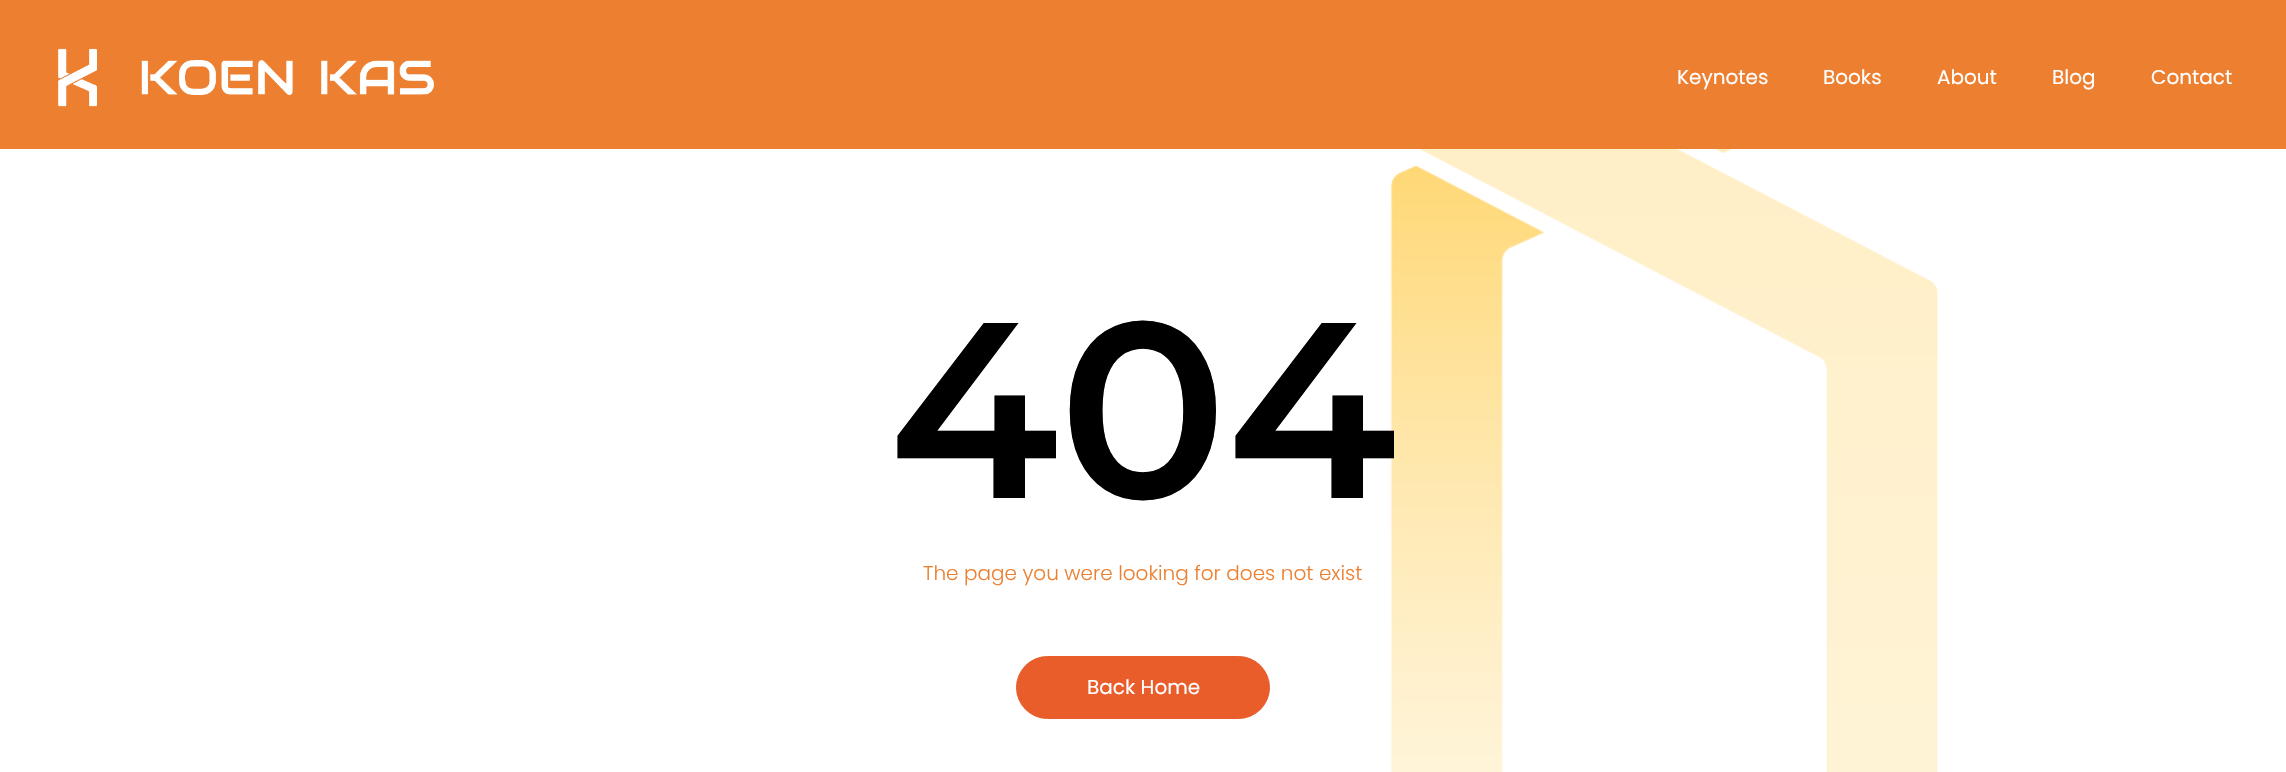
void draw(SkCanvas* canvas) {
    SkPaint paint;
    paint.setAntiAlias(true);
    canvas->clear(0xFFFFFFFF);
    canvas->drawImageRect(SkImages::DeferredFromEncodedData(SkData::MakeFromFileName("img1.png")), SkRect::MakeXYWH(1390, 149, 548, 623), SkSamplingOptions());
    paint.setColor(0xFFED7F30);
    canvas->drawRect(SkRect::MakeXYWH(0, 0, 2286, 149), paint);
    canvas->drawImageRect(SkImages::DeferredFromEncodedData(SkData::MakeFromFileName("img2.png")), SkRect::MakeXYWH(58, 48, 376, 59), SkSamplingOptions());
    SkFont font1(fontMgr->matchFamilyStyle("Poppins", SkFontStyle::Normal()), 20);
    font1.setSubpixel(true);
    paint.setColor(0xFFFFFFFF);
    canvas->drawString("Keynotes", 1677, 84, font1, paint);
    canvas->drawString("Books", 1823, 84, font1, paint);
    canvas->drawString("About", 1937, 84, font1, paint);
    canvas->drawString("Blog", 2052, 84, font1, paint);
    canvas->drawString("Contact", 2151, 84, font1, paint);
    SkFont font2(fontMgr->matchFamilyStyle("Montserrat", SkFontStyle(600, SkFontStyle::kNormal_Width, SkFontStyle::kUpright_Slant)), 250);
    font2.setSubpixel(true);
    paint.setColor(0xFF000000);
    canvas->drawString("404", 889, 498, font2, paint);
    SkFont font3(fontMgr->matchFamilyStyle("Poppins", SkFontStyle(300, SkFontStyle::kNormal_Width, SkFontStyle::kUpright_Slant)), 20);
    font3.setSubpixel(true);
    paint.setColor(0xFFED7F30);
    canvas->drawString("The page you were looking for does not exist", 923, 580, font3, paint);
    paint.setColor(0xFFE95D2B);
    canvas->drawRoundRect(SkRect::MakeXYWH(1016.5f, 656.5f, 253, 62), 31, 31, paint);
    paint.setStyle(SkPaint::kStroke_Style);
    paint.setStrokeWidth(1);
    canvas->drawRoundRect(SkRect::MakeXYWH(1016.5f, 656.5f, 253, 62), 31, 31, paint);
    paint.setStyle(SkPaint::kFill_Style);
    paint.setColor(0xFFFFFFFF);
    canvas->drawString("Back Home", 1087, 694, font1, paint);
}
